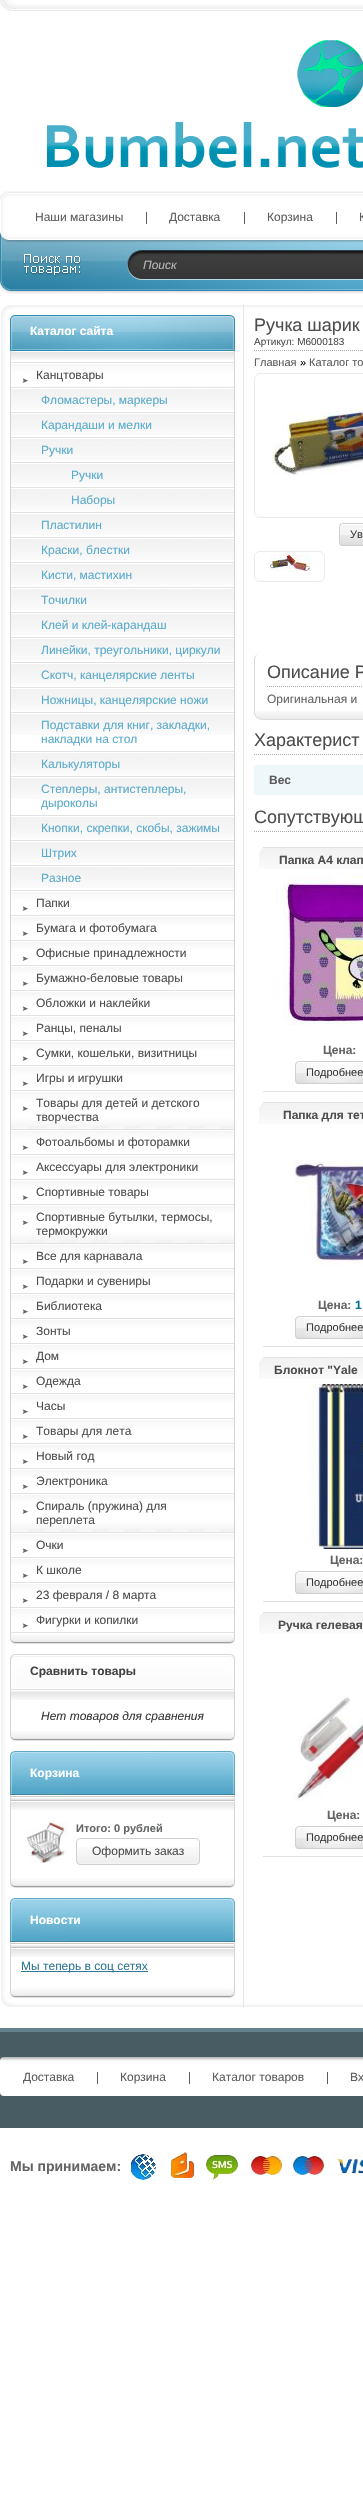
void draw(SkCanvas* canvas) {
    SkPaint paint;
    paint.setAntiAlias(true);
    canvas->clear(0xFFFFFFFF);
    canvas->drawImageRect(SkImages::DeferredFromEncodedData(SkData::MakeFromFileName("img1.png")), SkRect::MakeXYWH(0, 0, 14, 11), SkSamplingOptions());
    canvas->drawImageRect(SkImages::DeferredFromEncodedData(SkData::MakeFromFileName("img2.png")), SkRect::MakeXYWH(14, 4, 349, 7), SkSamplingOptions());
    canvas->drawImageRect(SkImages::DeferredFromEncodedData(SkData::MakeFromFileName("img3.png")), SkRect::MakeXYWH(47, 40, 316, 128), SkSamplingOptions());
    canvas->drawImageRect(SkImages::DeferredFromEncodedData(SkData::MakeFromFileName("img4.png")), SkRect::MakeXYWH(0, 191, 12, 103), SkSamplingOptions());
    canvas->drawImageRect(SkImages::DeferredFromEncodedData(SkData::MakeFromFileName("img5.png")), SkRect::MakeXYWH(12, 191, 351, 103), SkSamplingOptions());
    SkFont font1(fontMgr->matchFamilyStyle("Liberation Sans", SkFontStyle::Normal()), 12);
    font1.setSubpixel(true);
    paint.setColor(0xFF5E5D5D);
    canvas->drawString("Наши магазины", 35, 221, font1, paint);
    paint.setColor(0xFF5C5C5C);
    canvas->drawRect(SkRect::MakeXYWH(146, 212, 1, 12), paint);
    paint.setColor(0xFF5E5D5D);
    canvas->drawString("Доставка", 169, 221, font1, paint);
    paint.setColor(0xFF5C5C5C);
    canvas->drawRect(SkRect::MakeXYWH(244, 212, 1, 12), paint);
    paint.setColor(0xFF5E5D5D);
    canvas->drawString("Корзина", 267, 221, font1, paint);
    paint.setColor(0xFF5C5C5C);
    canvas->drawRect(SkRect::MakeXYWH(336, 212, 1, 12), paint);
    paint.setColor(0xFF5E5D5D);
    canvas->drawString("К", 359, 221, font1, paint);
    canvas->drawImageRect(SkImages::DeferredFromEncodedData(SkData::MakeFromFileName("img6.png")), SkRect::MakeXYWH(12, 240, 351, 50), SkSamplingOptions());
    SkFont font2(fontMgr->matchFamilyStyle("Liberation Sans", SkFontStyle::Italic()), 12);
    font2.setSubpixel(true);
    paint.setColor(0xFFB7B7B7);
    canvas->drawString("Поиск", 143, 269, font2, paint);
    canvas->drawImageRect(SkImages::DeferredFromEncodedData(SkData::MakeFromFileName("img7.png")), SkRect::MakeXYWH(1, 304, 362, 11), SkSamplingOptions());
    canvas->drawImageRect(SkImages::DeferredFromEncodedData(SkData::MakeFromFileName("img8.png")), SkRect::MakeXYWH(1, 315, 243, 1682), SkSamplingOptions());
    canvas->drawImageRect(SkImages::DeferredFromEncodedData(SkData::MakeFromFileName("img9.png")), SkRect::MakeXYWH(10, 315, 225, 37), SkSamplingOptions());
    SkFont font3(fontMgr->matchFamilyStyle("Liberation Sans", SkFontStyle::Bold()), 12);
    font3.setSubpixel(true);
    paint.setColor(0xFFFFFFFF);
    canvas->drawString("Каталог сайта", 30, 335, font3, paint);
    canvas->drawImageRect(SkImages::DeferredFromEncodedData(SkData::MakeFromFileName("img10.png")), SkRect::MakeXYWH(11, 352, 223, 8), SkSamplingOptions());
    paint.setColor(0xFFD5D5D5);
    canvas->drawRect(SkRect::MakeXYWH(234, 352, 1, 1281), paint);
    canvas->drawRect(SkRect::MakeXYWH(10, 352, 1, 1281), paint);
    paint.setColor(0xFFE2E2E2);
    canvas->drawRect(SkRect::MakeXYWH(11, 362, 223, 1), paint);
    canvas->drawImageRect(SkImages::DeferredFromEncodedData(SkData::MakeFromFileName("img11.png")), SkRect::MakeXYWH(11, 364, 223, 22), SkSamplingOptions());
    canvas->drawRect(SkRect::MakeXYWH(11, 387, 223, 1), paint);
    paint.setColor(0xFF4E4E4E);
    canvas->drawString("Канцтовары", 36, 379, font1, paint);
    canvas->drawImageRect(SkImages::DeferredFromEncodedData(SkData::MakeFromFileName("img12.png")), SkRect::MakeXYWH(11, 389, 223, 21), SkSamplingOptions());
    paint.setColor(0xFFE2E2E2);
    canvas->drawRect(SkRect::MakeXYWH(11, 412, 223, 1), paint);
    paint.setColor(0xFF5BABCC);
    canvas->drawString("Фломастеры, маркеры", 41, 404, font1, paint);
    canvas->drawImageRect(SkImages::DeferredFromEncodedData(SkData::MakeFromFileName("img12.png")), SkRect::MakeXYWH(11, 414, 223, 21), SkSamplingOptions());
    paint.setColor(0xFFE2E2E2);
    canvas->drawRect(SkRect::MakeXYWH(11, 437, 223, 1), paint);
    paint.setColor(0xFF5BABCC);
    canvas->drawString("Карандаши и мелки", 41, 429, font1, paint);
    canvas->drawImageRect(SkImages::DeferredFromEncodedData(SkData::MakeFromFileName("img12.png")), SkRect::MakeXYWH(11, 439, 223, 21), SkSamplingOptions());
    paint.setColor(0xFFE2E2E2);
    canvas->drawRect(SkRect::MakeXYWH(11, 462, 223, 1), paint);
    paint.setColor(0xFF5BABCC);
    canvas->drawString("Ручки", 41, 454, font1, paint);
    canvas->drawImageRect(SkImages::DeferredFromEncodedData(SkData::MakeFromFileName("img12.png")), SkRect::MakeXYWH(11, 464, 223, 21), SkSamplingOptions());
    paint.setColor(0xFFE2E2E2);
    canvas->drawRect(SkRect::MakeXYWH(11, 487, 223, 1), paint);
    paint.setColor(0xFF5BABCC);
    canvas->drawString("Ручки", 71, 479, font1, paint);
    canvas->drawImageRect(SkImages::DeferredFromEncodedData(SkData::MakeFromFileName("img12.png")), SkRect::MakeXYWH(11, 489, 223, 21), SkSamplingOptions());
    paint.setColor(0xFFE2E2E2);
    canvas->drawRect(SkRect::MakeXYWH(11, 512, 223, 1), paint);
    paint.setColor(0xFF5BABCC);
    canvas->drawString("Наборы", 71, 504, font1, paint);
    canvas->drawImageRect(SkImages::DeferredFromEncodedData(SkData::MakeFromFileName("img12.png")), SkRect::MakeXYWH(11, 514, 223, 21), SkSamplingOptions());
    paint.setColor(0xFFE2E2E2);
    canvas->drawRect(SkRect::MakeXYWH(11, 537, 223, 1), paint);
    paint.setColor(0xFF5BABCC);
    canvas->drawString("Пластилин", 41, 529, font1, paint);
    canvas->drawImageRect(SkImages::DeferredFromEncodedData(SkData::MakeFromFileName("img12.png")), SkRect::MakeXYWH(11, 539, 223, 21), SkSamplingOptions());
    paint.setColor(0xFFE2E2E2);
    canvas->drawRect(SkRect::MakeXYWH(11, 562, 223, 1), paint);
    paint.setColor(0xFF5BABCC);
    canvas->drawString("Краски, блестки", 41, 554, font1, paint);
    canvas->drawImageRect(SkImages::DeferredFromEncodedData(SkData::MakeFromFileName("img12.png")), SkRect::MakeXYWH(11, 564, 223, 21), SkSamplingOptions());
    paint.setColor(0xFFE2E2E2);
    canvas->drawRect(SkRect::MakeXYWH(11, 587, 223, 1), paint);
    paint.setColor(0xFF5BABCC);
    canvas->drawString("Кисти, мастихин", 41, 579, font1, paint);
    canvas->drawImageRect(SkImages::DeferredFromEncodedData(SkData::MakeFromFileName("img12.png")), SkRect::MakeXYWH(11, 589, 223, 21), SkSamplingOptions());
    paint.setColor(0xFFE2E2E2);
    canvas->drawRect(SkRect::MakeXYWH(11, 612, 223, 1), paint);
    paint.setColor(0xFF5BABCC);
    canvas->drawString("Точилки", 41, 604, font1, paint);
    canvas->drawImageRect(SkImages::DeferredFromEncodedData(SkData::MakeFromFileName("img12.png")), SkRect::MakeXYWH(11, 614, 223, 21), SkSamplingOptions());
    paint.setColor(0xFFE2E2E2);
    canvas->drawRect(SkRect::MakeXYWH(11, 637, 223, 1), paint);
    paint.setColor(0xFF5BABCC);
    canvas->drawString("Клей и клей-карандаш", 41, 629, font1, paint);
    canvas->drawImageRect(SkImages::DeferredFromEncodedData(SkData::MakeFromFileName("img12.png")), SkRect::MakeXYWH(11, 639, 223, 21), SkSamplingOptions());
    paint.setColor(0xFFE2E2E2);
    canvas->drawRect(SkRect::MakeXYWH(11, 662, 223, 1), paint);
    paint.setColor(0xFF5BABCC);
    canvas->drawString("Линейки, треугольники, циркули", 41, 654, font1, paint);
    canvas->drawImageRect(SkImages::DeferredFromEncodedData(SkData::MakeFromFileName("img12.png")), SkRect::MakeXYWH(11, 664, 223, 21), SkSamplingOptions());
    paint.setColor(0xFFE2E2E2);
    canvas->drawRect(SkRect::MakeXYWH(11, 687, 223, 1), paint);
    paint.setColor(0xFF5BABCC);
    canvas->drawString("Скотч, канцелярские ленты", 41, 679, font1, paint);
    canvas->drawImageRect(SkImages::DeferredFromEncodedData(SkData::MakeFromFileName("img12.png")), SkRect::MakeXYWH(11, 689, 223, 21), SkSamplingOptions());
    paint.setColor(0xFFE2E2E2);
    canvas->drawRect(SkRect::MakeXYWH(11, 712, 223, 1), paint);
    paint.setColor(0xFF5BABCC);
    canvas->drawString("Ножницы, канцелярские ножи", 41, 704, font1, paint);
    canvas->drawImageRect(SkImages::DeferredFromEncodedData(SkData::MakeFromFileName("img12.png")), SkRect::MakeXYWH(11, 714, 223, 21), SkSamplingOptions());
    paint.setColor(0xFFE2E2E2);
    canvas->drawRect(SkRect::MakeXYWH(11, 751, 223, 1), paint);
    paint.setColor(0xFF5BABCC);
    canvas->drawString("Подставки для книг, закладки,", 41, 729, font1, paint);
    canvas->drawString("накладки на стол", 41, 743, font1, paint);
    canvas->drawImageRect(SkImages::DeferredFromEncodedData(SkData::MakeFromFileName("img12.png")), SkRect::MakeXYWH(11, 753, 223, 21), SkSamplingOptions());
    paint.setColor(0xFFE2E2E2);
    canvas->drawRect(SkRect::MakeXYWH(11, 776, 223, 1), paint);
    paint.setColor(0xFF5BABCC);
    canvas->drawString("Калькуляторы", 41, 768, font1, paint);
    canvas->drawImageRect(SkImages::DeferredFromEncodedData(SkData::MakeFromFileName("img12.png")), SkRect::MakeXYWH(11, 778, 223, 21), SkSamplingOptions());
    paint.setColor(0xFFE2E2E2);
    canvas->drawRect(SkRect::MakeXYWH(11, 815, 223, 1), paint);
    paint.setColor(0xFF5BABCC);
    canvas->drawString("Степлеры, антистеплеры,", 41, 793, font1, paint);
    canvas->drawString("дыроколы", 41, 807, font1, paint);
    canvas->drawImageRect(SkImages::DeferredFromEncodedData(SkData::MakeFromFileName("img12.png")), SkRect::MakeXYWH(11, 817, 223, 21), SkSamplingOptions());
    paint.setColor(0xFFE2E2E2);
    canvas->drawRect(SkRect::MakeXYWH(11, 840, 223, 1), paint);
    paint.setColor(0xFF5BABCC);
    canvas->drawString("Кнопки, скрепки, скобы, зажимы", 41, 832, font1, paint);
    canvas->drawImageRect(SkImages::DeferredFromEncodedData(SkData::MakeFromFileName("img12.png")), SkRect::MakeXYWH(11, 842, 223, 21), SkSamplingOptions());
    paint.setColor(0xFFE2E2E2);
    canvas->drawRect(SkRect::MakeXYWH(11, 865, 223, 1), paint);
    paint.setColor(0xFF5BABCC);
    canvas->drawString("Штрих", 41, 857, font1, paint);
    canvas->drawImageRect(SkImages::DeferredFromEncodedData(SkData::MakeFromFileName("img12.png")), SkRect::MakeXYWH(11, 867, 223, 21), SkSamplingOptions());
    paint.setColor(0xFFE2E2E2);
    canvas->drawRect(SkRect::MakeXYWH(11, 890, 223, 1), paint);
    paint.setColor(0xFF5BABCC);
    canvas->drawString("Разное", 41, 882, font1, paint);
    canvas->drawImageRect(SkImages::DeferredFromEncodedData(SkData::MakeFromFileName("img11.png")), SkRect::MakeXYWH(11, 892, 223, 22), SkSamplingOptions());
    paint.setColor(0xFFE2E2E2);
    canvas->drawRect(SkRect::MakeXYWH(11, 915, 223, 1), paint);
    paint.setColor(0xFF4E4E4E);
    canvas->drawString("Папки", 36, 907, font1, paint);
    canvas->drawImageRect(SkImages::DeferredFromEncodedData(SkData::MakeFromFileName("img11.png")), SkRect::MakeXYWH(11, 917, 223, 22), SkSamplingOptions());
    paint.setColor(0xFFE2E2E2);
    canvas->drawRect(SkRect::MakeXYWH(11, 940, 223, 1), paint);
    paint.setColor(0xFF4E4E4E);
    canvas->drawString("Бумага и фотобумага", 36, 932, font1, paint);
    canvas->drawImageRect(SkImages::DeferredFromEncodedData(SkData::MakeFromFileName("img11.png")), SkRect::MakeXYWH(11, 942, 223, 22), SkSamplingOptions());
    paint.setColor(0xFFE2E2E2);
    canvas->drawRect(SkRect::MakeXYWH(11, 965, 223, 1), paint);
    paint.setColor(0xFF4E4E4E);
    canvas->drawString("Офисные принадлежности", 36, 957, font1, paint);
    canvas->drawImageRect(SkImages::DeferredFromEncodedData(SkData::MakeFromFileName("img11.png")), SkRect::MakeXYWH(11, 967, 223, 22), SkSamplingOptions());
    paint.setColor(0xFFE2E2E2);
    canvas->drawRect(SkRect::MakeXYWH(11, 990, 223, 1), paint);
    paint.setColor(0xFF4E4E4E);
    canvas->drawString("Бумажно-беловые товары", 36, 982, font1, paint);
    canvas->drawImageRect(SkImages::DeferredFromEncodedData(SkData::MakeFromFileName("img11.png")), SkRect::MakeXYWH(11, 992, 223, 22), SkSamplingOptions());
    paint.setColor(0xFFE2E2E2);
    canvas->drawRect(SkRect::MakeXYWH(11, 1015, 223, 1), paint);
    paint.setColor(0xFF4E4E4E);
    canvas->drawString("Обложки и наклейки", 36, 1007, font1, paint);
    canvas->drawImageRect(SkImages::DeferredFromEncodedData(SkData::MakeFromFileName("img11.png")), SkRect::MakeXYWH(11, 1017, 223, 22), SkSamplingOptions());
    paint.setColor(0xFFE2E2E2);
    canvas->drawRect(SkRect::MakeXYWH(11, 1040, 223, 1), paint);
    paint.setColor(0xFF4E4E4E);
    canvas->drawString("Ранцы, пеналы", 36, 1032, font1, paint);
    canvas->drawImageRect(SkImages::DeferredFromEncodedData(SkData::MakeFromFileName("img11.png")), SkRect::MakeXYWH(11, 1042, 223, 22), SkSamplingOptions());
    paint.setColor(0xFFE2E2E2);
    canvas->drawRect(SkRect::MakeXYWH(11, 1065, 223, 1), paint);
    paint.setColor(0xFF4E4E4E);
    canvas->drawString("Сумки, кошельки, визитницы", 36, 1057, font1, paint);
    canvas->drawImageRect(SkImages::DeferredFromEncodedData(SkData::MakeFromFileName("img11.png")), SkRect::MakeXYWH(11, 1067, 223, 22), SkSamplingOptions());
    paint.setColor(0xFFE2E2E2);
    canvas->drawRect(SkRect::MakeXYWH(11, 1090, 223, 1), paint);
    paint.setColor(0xFF4E4E4E);
    canvas->drawString("Игры и игрушки", 36, 1082, font1, paint);
    canvas->drawImageRect(SkImages::DeferredFromEncodedData(SkData::MakeFromFileName("img13.png")), SkRect::MakeXYWH(11, 1092, 223, 37), SkSamplingOptions());
    paint.setColor(0xFFE2E2E2);
    canvas->drawRect(SkRect::MakeXYWH(11, 1129, 223, 1), paint);
    paint.setColor(0xFF4E4E4E);
    canvas->drawString("Товары для детей и детского", 36, 1107, font1, paint);
    canvas->drawString("творчества", 36, 1121, font1, paint);
    canvas->drawImageRect(SkImages::DeferredFromEncodedData(SkData::MakeFromFileName("img11.png")), SkRect::MakeXYWH(11, 1131, 223, 22), SkSamplingOptions());
    paint.setColor(0xFFE2E2E2);
    canvas->drawRect(SkRect::MakeXYWH(11, 1154, 223, 1), paint);
    paint.setColor(0xFF4E4E4E);
    canvas->drawString("Фотоальбомы и фоторамки", 36, 1146, font1, paint);
    canvas->drawImageRect(SkImages::DeferredFromEncodedData(SkData::MakeFromFileName("img11.png")), SkRect::MakeXYWH(11, 1156, 223, 22), SkSamplingOptions());
    paint.setColor(0xFFE2E2E2);
    canvas->drawRect(SkRect::MakeXYWH(11, 1179, 223, 1), paint);
    paint.setColor(0xFF4E4E4E);
    canvas->drawString("Аксессуары для электроники", 36, 1171, font1, paint);
    canvas->drawImageRect(SkImages::DeferredFromEncodedData(SkData::MakeFromFileName("img11.png")), SkRect::MakeXYWH(11, 1181, 223, 22), SkSamplingOptions());
    paint.setColor(0xFFE2E2E2);
    canvas->drawRect(SkRect::MakeXYWH(11, 1204, 223, 1), paint);
    paint.setColor(0xFF4E4E4E);
    canvas->drawString("Спортивные товары", 36, 1196, font1, paint);
    canvas->drawImageRect(SkImages::DeferredFromEncodedData(SkData::MakeFromFileName("img13.png")), SkRect::MakeXYWH(11, 1206, 223, 37), SkSamplingOptions());
    paint.setColor(0xFFE2E2E2);
    canvas->drawRect(SkRect::MakeXYWH(11, 1243, 223, 1), paint);
    paint.setColor(0xFF4E4E4E);
    canvas->drawString("Спортивные бутылки, термосы,", 36, 1221, font1, paint);
    canvas->drawString("термокружки", 36, 1235, font1, paint);
    canvas->drawImageRect(SkImages::DeferredFromEncodedData(SkData::MakeFromFileName("img11.png")), SkRect::MakeXYWH(11, 1245, 223, 22), SkSamplingOptions());
    paint.setColor(0xFFE2E2E2);
    canvas->drawRect(SkRect::MakeXYWH(11, 1268, 223, 1), paint);
    paint.setColor(0xFF4E4E4E);
    canvas->drawString("Все для карнавала", 36, 1260, font1, paint);
    canvas->drawImageRect(SkImages::DeferredFromEncodedData(SkData::MakeFromFileName("img11.png")), SkRect::MakeXYWH(11, 1270, 223, 22), SkSamplingOptions());
    paint.setColor(0xFFE2E2E2);
    canvas->drawRect(SkRect::MakeXYWH(11, 1293, 223, 1), paint);
    paint.setColor(0xFF4E4E4E);
    canvas->drawString("Подарки и сувениры", 36, 1285, font1, paint);
    canvas->drawImageRect(SkImages::DeferredFromEncodedData(SkData::MakeFromFileName("img11.png")), SkRect::MakeXYWH(11, 1295, 223, 22), SkSamplingOptions());
    paint.setColor(0xFFE2E2E2);
    canvas->drawRect(SkRect::MakeXYWH(11, 1318, 223, 1), paint);
    paint.setColor(0xFF4E4E4E);
    canvas->drawString("Библиотека", 36, 1310, font1, paint);
    canvas->drawImageRect(SkImages::DeferredFromEncodedData(SkData::MakeFromFileName("img11.png")), SkRect::MakeXYWH(11, 1320, 223, 22), SkSamplingOptions());
    paint.setColor(0xFFE2E2E2);
    canvas->drawRect(SkRect::MakeXYWH(11, 1343, 223, 1), paint);
    paint.setColor(0xFF4E4E4E);
    canvas->drawString("Зонты", 36, 1335, font1, paint);
    canvas->drawImageRect(SkImages::DeferredFromEncodedData(SkData::MakeFromFileName("img11.png")), SkRect::MakeXYWH(11, 1345, 223, 22), SkSamplingOptions());
    paint.setColor(0xFFE2E2E2);
    canvas->drawRect(SkRect::MakeXYWH(11, 1368, 223, 1), paint);
    paint.setColor(0xFF4E4E4E);
    canvas->drawString("Дом", 36, 1360, font1, paint);
    canvas->drawImageRect(SkImages::DeferredFromEncodedData(SkData::MakeFromFileName("img11.png")), SkRect::MakeXYWH(11, 1370, 223, 22), SkSamplingOptions());
    paint.setColor(0xFFE2E2E2);
    canvas->drawRect(SkRect::MakeXYWH(11, 1393, 223, 1), paint);
    paint.setColor(0xFF4E4E4E);
    canvas->drawString("Одежда", 36, 1385, font1, paint);
    canvas->drawImageRect(SkImages::DeferredFromEncodedData(SkData::MakeFromFileName("img11.png")), SkRect::MakeXYWH(11, 1395, 223, 22), SkSamplingOptions());
    paint.setColor(0xFFE2E2E2);
    canvas->drawRect(SkRect::MakeXYWH(11, 1418, 223, 1), paint);
    paint.setColor(0xFF4E4E4E);
    canvas->drawString("Часы", 36, 1410, font1, paint);
    canvas->drawImageRect(SkImages::DeferredFromEncodedData(SkData::MakeFromFileName("img11.png")), SkRect::MakeXYWH(11, 1420, 223, 22), SkSamplingOptions());
    paint.setColor(0xFFE2E2E2);
    canvas->drawRect(SkRect::MakeXYWH(11, 1443, 223, 1), paint);
    paint.setColor(0xFF4E4E4E);
    canvas->drawString("Товары для лета", 36, 1435, font1, paint);
    canvas->drawImageRect(SkImages::DeferredFromEncodedData(SkData::MakeFromFileName("img11.png")), SkRect::MakeXYWH(11, 1445, 223, 22), SkSamplingOptions());
    paint.setColor(0xFFE2E2E2);
    canvas->drawRect(SkRect::MakeXYWH(11, 1468, 223, 1), paint);
    paint.setColor(0xFF4E4E4E);
    canvas->drawString("Новый год", 36, 1460, font1, paint);
    canvas->drawImageRect(SkImages::DeferredFromEncodedData(SkData::MakeFromFileName("img11.png")), SkRect::MakeXYWH(11, 1470, 223, 22), SkSamplingOptions());
    paint.setColor(0xFFE2E2E2);
    canvas->drawRect(SkRect::MakeXYWH(11, 1493, 223, 1), paint);
    paint.setColor(0xFF4E4E4E);
    canvas->drawString("Электроника", 36, 1485, font1, paint);
    canvas->drawImageRect(SkImages::DeferredFromEncodedData(SkData::MakeFromFileName("img13.png")), SkRect::MakeXYWH(11, 1495, 223, 37), SkSamplingOptions());
    paint.setColor(0xFFE2E2E2);
    canvas->drawRect(SkRect::MakeXYWH(11, 1532, 223, 1), paint);
    paint.setColor(0xFF4E4E4E);
    canvas->drawString("Спираль (пружина) для", 36, 1510, font1, paint);
    canvas->drawString("переплета", 36, 1524, font1, paint);
    canvas->drawImageRect(SkImages::DeferredFromEncodedData(SkData::MakeFromFileName("img11.png")), SkRect::MakeXYWH(11, 1534, 223, 22), SkSamplingOptions());
    paint.setColor(0xFFE2E2E2);
    canvas->drawRect(SkRect::MakeXYWH(11, 1557, 223, 1), paint);
    paint.setColor(0xFF4E4E4E);
    canvas->drawString("Очки", 36, 1549, font1, paint);
    canvas->drawImageRect(SkImages::DeferredFromEncodedData(SkData::MakeFromFileName("img11.png")), SkRect::MakeXYWH(11, 1559, 223, 22), SkSamplingOptions());
    paint.setColor(0xFFE2E2E2);
    canvas->drawRect(SkRect::MakeXYWH(11, 1582, 223, 1), paint);
    paint.setColor(0xFF4E4E4E);
    canvas->drawString("К школе", 36, 1574, font1, paint);
    canvas->drawImageRect(SkImages::DeferredFromEncodedData(SkData::MakeFromFileName("img11.png")), SkRect::MakeXYWH(11, 1584, 223, 22), SkSamplingOptions());
    paint.setColor(0xFFE2E2E2);
    canvas->drawRect(SkRect::MakeXYWH(11, 1607, 223, 1), paint);
    paint.setColor(0xFF4E4E4E);
    canvas->drawString("23 февраля / 8 марта", 36, 1599, font1, paint);
    canvas->drawImageRect(SkImages::DeferredFromEncodedData(SkData::MakeFromFileName("img11.png")), SkRect::MakeXYWH(11, 1609, 223, 22), SkSamplingOptions());
    paint.setColor(0xFFE2E2E2);
    canvas->drawRect(SkRect::MakeXYWH(11, 1632, 223, 1), paint);
    paint.setColor(0xFF4E4E4E);
    canvas->drawString("Фигурки и копилки", 36, 1624, font1, paint);
    canvas->drawImageRect(SkImages::DeferredFromEncodedData(SkData::MakeFromFileName("img14.png")), SkRect::MakeXYWH(10, 1633, 225, 11), SkSamplingOptions());
    canvas->drawImageRect(SkImages::DeferredFromEncodedData(SkData::MakeFromFileName("img15.png")), SkRect::MakeXYWH(10, 1654, 225, 38), SkSamplingOptions());
    paint.setColor(0xFF434343);
    canvas->drawString("Сравнить товары", 30, 1675, font3, paint);
    canvas->drawImageRect(SkImages::DeferredFromEncodedData(SkData::MakeFromFileName("img10.png")), SkRect::MakeXYWH(11, 1692, 223, 8), SkSamplingOptions());
    paint.setColor(0xFFD5D5D5);
    canvas->drawRect(SkRect::MakeXYWH(234, 1692, 1, 38), paint);
    canvas->drawRect(SkRect::MakeXYWH(10, 1692, 1, 38), paint);
    paint.setColor(0xFF3A3A3A);
    canvas->drawString("Нет товаров для сравнения", 41, 1720, font2, paint);
    canvas->drawImageRect(SkImages::DeferredFromEncodedData(SkData::MakeFromFileName("img14.png")), SkRect::MakeXYWH(10, 1730, 225, 11), SkSamplingOptions());
    canvas->drawImageRect(SkImages::DeferredFromEncodedData(SkData::MakeFromFileName("img16.png")), SkRect::MakeXYWH(10, 1751, 225, 51), SkSamplingOptions());
    paint.setColor(0xFFFFFFFF);
    canvas->drawString("Корзина", 30, 1777, font3, paint);
    canvas->drawImageRect(SkImages::DeferredFromEncodedData(SkData::MakeFromFileName("img10.png")), SkRect::MakeXYWH(11, 1802, 223, 8), SkSamplingOptions());
    paint.setColor(0xFFD5D5D5);
    canvas->drawRect(SkRect::MakeXYWH(234, 1802, 1, 75), paint);
    canvas->drawRect(SkRect::MakeXYWH(10, 1802, 1, 75), paint);
    canvas->drawImageRect(SkImages::DeferredFromEncodedData(SkData::MakeFromFileName("img17.png")), SkRect::MakeXYWH(26, 1822, 42, 41), SkSamplingOptions());
    SkFont font4(fontMgr->matchFamilyStyle("Liberation Sans", SkFontStyle::Bold()), 11);
    font4.setSubpixel(true);
    paint.setColor(0xFF636464);
    canvas->drawString("Итого: 0 рублей", 76, 1832, font4, paint);
    canvas->drawImageRect(SkImages::DeferredFromEncodedData(SkData::MakeFromFileName("img18.png")), SkRect::MakeXYWH(76, 1847, 124, 17), SkSamplingOptions());
    paint.setStyle(SkPaint::kStroke_Style);
    paint.setStrokeWidth(1);
    paint.setColor(0xFFD0D0D0);
    canvas->drawRoundRect(SkRect::MakeXYWH(76.5f, 1838.5f, 123, 26), 3.5f, 3.5f, paint);
    paint.setStyle(SkPaint::kFill_Style);
    paint.setColor(0xFF4E4E4E);
    canvas->drawString("Оформить заказ", 92, 1855, font1, paint);
    canvas->drawImageRect(SkImages::DeferredFromEncodedData(SkData::MakeFromFileName("img14.png")), SkRect::MakeXYWH(10, 1877, 225, 11), SkSamplingOptions());
    canvas->drawImageRect(SkImages::DeferredFromEncodedData(SkData::MakeFromFileName("img16.png")), SkRect::MakeXYWH(10, 1898, 225, 51), SkSamplingOptions());
    paint.setColor(0xFFFFFFFF);
    canvas->drawString("Новости", 30, 1924, font3, paint);
    canvas->drawImageRect(SkImages::DeferredFromEncodedData(SkData::MakeFromFileName("img10.png")), SkRect::MakeXYWH(11, 1949, 223, 8), SkSamplingOptions());
    paint.setColor(0xFFD5D5D5);
    canvas->drawRect(SkRect::MakeXYWH(234, 1949, 1, 38), paint);
    canvas->drawRect(SkRect::MakeXYWH(10, 1949, 1, 38), paint);
    paint.setColor(0xFF2F7793);
    canvas->drawRect(SkRect::MakeXYWH(21, 1971, 127, 1), paint);
    canvas->drawString("Мы теперь в соц сетях", 21, 1970, font1, paint);
    canvas->drawImageRect(SkImages::DeferredFromEncodedData(SkData::MakeFromFileName("img29.png")), SkRect::MakeXYWH(1, 1997, 362, 11), SkSamplingOptions());
    canvas->drawImageRect(SkImages::DeferredFromEncodedData(SkData::MakeFromFileName("img14.png")), SkRect::MakeXYWH(10, 1987, 225, 11), SkSamplingOptions());
    paint.setStyle(SkPaint::kStroke_Style);
    paint.setColor(0xFFABABAB);
    paint.setPathEffect(SkDashPathEffect::Make({{1, 1}}, 0));
    canvas->drawPath(SkPathBuilder().moveTo(254, 350.5f).lineTo(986, 350.5f).detach(), paint);
    paint.setPathEffect(nullptr);
    SkFont font5(fontMgr->matchFamilyStyle("Liberation Sans", SkFontStyle::Normal()), 18);
    font5.setSubpixel(true);
    paint.setStyle(SkPaint::kFill_Style);
    paint.setColor(0xFF4E4E4E);
    canvas->drawString("Ручка шарик", 254, 331, font5, paint);
    SkFont font6(fontMgr->matchFamilyStyle("Liberation Sans", SkFontStyle::Normal()), 10);
    font6.setSubpixel(true);
    canvas->drawString("Артикул: М6000183", 254, 345, font6, paint);
    SkFont font7(fontMgr->matchFamilyStyle("Liberation Sans", SkFontStyle::Normal()), 11);
    font7.setSubpixel(true);
    paint.setColor(0xFF5E5D5D);
    canvas->drawString("Главная", 254, 366, font7, paint);
    paint.setColor(0xFF000000);
    canvas->drawString("»", 300, 366, font7, paint);
    paint.setColor(0xFF5E5D5D);
    canvas->drawString("Каталог то", 309, 366, font7, paint);
    paint.setStyle(SkPaint::kStroke_Style);
    paint.setColor(0xFFEBEBEB);
    canvas->drawRoundRect(SkRect::MakeXYWH(254.5f, 373.5f, 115, 144), 5.5f, 5.5f, paint);
    canvas->drawImageRect(SkImages::DeferredFromEncodedData(SkData::MakeFromFileName("img19.png")), SkRect::MakeXYWH(273, 411, 90, 64), SkSamplingOptions());
    canvas->drawImageRect(SkImages::DeferredFromEncodedData(SkData::MakeFromFileName("img20.png")), SkRect::MakeXYWH(339, 525, 24, 21), SkSamplingOptions());
    paint.setColor(0xFFD0D0D0);
    canvas->drawRoundRect(SkRect::MakeXYWH(339.5f, 523.5f, 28, 22), 3.5f, 3.5f, paint);
    paint.setStyle(SkPaint::kFill_Style);
    paint.setColor(0xFF3A3A3A);
    canvas->drawString("Ув", 350, 538, font7, paint);
    paint.setStyle(SkPaint::kStroke_Style);
    paint.setColor(0xFFEBEBEB);
    canvas->drawRoundRect(SkRect::MakeXYWH(254.5f, 551.5f, 70, 30), 5.5f, 5.5f, paint);
    canvas->drawImageRect(SkImages::DeferredFromEncodedData(SkData::MakeFromFileName("img21.png")), SkRect::MakeXYWH(270, 555, 40, 17), SkSamplingOptions());
    canvas->drawImageRect(SkImages::DeferredFromEncodedData(SkData::MakeFromFileName("img22.png")), SkRect::MakeXYWH(254, 711, 109, 8), SkSamplingOptions());
    paint.setStyle(SkPaint::kFill_Style);
    paint.setColor(0xFFDADADA);
    canvas->drawPath(SkPathBuilder(SkPathFillType::kEvenOdd).moveTo(262, 652).lineTo(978, 652).cubicTo(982, 652, 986, 656, 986, 660).lineTo(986, 712).cubicTo(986, 716, 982, 720, 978, 720).lineTo(262, 720).cubicTo(258, 720, 254, 716, 254, 712).lineTo(254, 660).cubicTo(254, 656, 258, 652, 262, 652).close().moveTo(262, 652).lineTo(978, 652).cubicTo(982, 652, 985, 656, 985, 660).lineTo(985, 712).cubicTo(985, 716, 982, 719, 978, 719).lineTo(262, 719).cubicTo(258, 719, 255, 716, 255, 712).lineTo(255, 660).cubicTo(255, 656, 258, 652, 262, 652).close().detach(), paint);
    paint.setStyle(SkPaint::kStroke_Style);
    paint.setColor(0xFFABABAB);
    paint.setPathEffect(SkDashPathEffect::Make({{1, 1}}, 0));
    canvas->drawPath(SkPathBuilder().moveTo(267, 686.5f).lineTo(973, 686.5f).detach(), paint);
    paint.setPathEffect(nullptr);
    paint.setStyle(SkPaint::kFill_Style);
    paint.setColor(0xFF4E4E4E);
    canvas->drawString("Описание Р", 267, 678, font5, paint);
    paint.setColor(0xFF636464);
    canvas->drawString("Оригинальная и", 267, 703, font1, paint);
    paint.setStyle(SkPaint::kStroke_Style);
    paint.setColor(0xFFABABAB);
    paint.setPathEffect(SkDashPathEffect::Make({{1, 1}}, 0));
    canvas->drawPath(SkPathBuilder().moveTo(254, 754.5f).lineTo(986, 754.5f).detach(), paint);
    paint.setPathEffect(nullptr);
    paint.setStyle(SkPaint::kFill_Style);
    paint.setColor(0xFF4E4E4E);
    canvas->drawString("Характерист", 254, 746, font5, paint);
    paint.setColor(0xFFEEF7FA);
    canvas->drawRect(SkRect::MakeXYWH(254, 765, 109, 30), paint);
    paint.setColor(0xFF5E5D5D);
    canvas->drawString("Вес", 269, 784, font3, paint);
    paint.setStyle(SkPaint::kStroke_Style);
    paint.setColor(0xFFABABAB);
    paint.setPathEffect(SkDashPathEffect::Make({{1, 1}}, 0));
    canvas->drawPath(SkPathBuilder().moveTo(254, 831.5f).lineTo(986, 831.5f).detach(), paint);
    paint.setPathEffect(nullptr);
    paint.setStyle(SkPaint::kFill_Style);
    paint.setColor(0xFF4E4E4E);
    canvas->drawString("Сопутствующ", 254, 823, font5, paint);
    canvas->drawImageRect(SkImages::DeferredFromEncodedData(SkData::MakeFromFileName("img23.png")), SkRect::MakeXYWH(259, 848, 104, 21), SkSamplingOptions());
    paint.setColor(0xFFE2E2E2);
    canvas->drawRect(SkRect::MakeXYWH(263, 847, 100, 1), paint);
    canvas->drawRect(SkRect::MakeXYWH(263, 1091, 100, 1), paint);
    paint.setColor(0xFF4E4E4E);
    canvas->drawString("Папка А4 клап", 279, 864, font3, paint);
    canvas->drawImageRect(SkImages::DeferredFromEncodedData(SkData::MakeFromFileName("img24.png")), SkRect::MakeXYWH(283, 874, 80, 152), SkSamplingOptions());
    paint.setColor(0xFF636464);
    canvas->drawString("Цена:", 323, 1054, font3, paint);
    canvas->drawImageRect(SkImages::DeferredFromEncodedData(SkData::MakeFromFileName("img25.png")), SkRect::MakeXYWH(295, 1063, 68, 21), SkSamplingOptions());
    paint.setStyle(SkPaint::kStroke_Style);
    paint.setColor(0xFFD0D0D0);
    canvas->drawRoundRect(SkRect::MakeXYWH(295.5f, 1061.5f, 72, 22), 3.5f, 3.5f, paint);
    paint.setStyle(SkPaint::kFill_Style);
    paint.setColor(0xFF3A3A3A);
    canvas->drawString("Подробнее", 306, 1076, font7, paint);
    canvas->drawImageRect(SkImages::DeferredFromEncodedData(SkData::MakeFromFileName("img23.png")), SkRect::MakeXYWH(259, 1103, 104, 21), SkSamplingOptions());
    paint.setColor(0xFFE2E2E2);
    canvas->drawRect(SkRect::MakeXYWH(263, 1102, 100, 1), paint);
    canvas->drawRect(SkRect::MakeXYWH(263, 1346, 100, 1), paint);
    paint.setColor(0xFF4E4E4E);
    canvas->drawString("Папка для тет", 283, 1119, font3, paint);
    canvas->drawImageRect(SkImages::DeferredFromEncodedData(SkData::MakeFromFileName("img26.png")), SkRect::MakeXYWH(287, 1159, 76, 107), SkSamplingOptions());
    paint.setColor(0xFF636464);
    canvas->drawString("Цена:", 318, 1309, font3, paint);
    paint.setColor(0xFF096F97);
    canvas->drawString("1", 355, 1309, font3, paint);
    canvas->drawImageRect(SkImages::DeferredFromEncodedData(SkData::MakeFromFileName("img25.png")), SkRect::MakeXYWH(295, 1318, 68, 21), SkSamplingOptions());
    paint.setStyle(SkPaint::kStroke_Style);
    paint.setColor(0xFFD0D0D0);
    canvas->drawRoundRect(SkRect::MakeXYWH(295.5f, 1316.5f, 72, 22), 3.5f, 3.5f, paint);
    paint.setStyle(SkPaint::kFill_Style);
    paint.setColor(0xFF3A3A3A);
    canvas->drawString("Подробнее", 306, 1331, font7, paint);
    canvas->drawImageRect(SkImages::DeferredFromEncodedData(SkData::MakeFromFileName("img23.png")), SkRect::MakeXYWH(259, 1358, 104, 21), SkSamplingOptions());
    paint.setColor(0xFFE2E2E2);
    canvas->drawRect(SkRect::MakeXYWH(263, 1357, 100, 1), paint);
    canvas->drawRect(SkRect::MakeXYWH(263, 1601, 100, 1), paint);
    paint.setColor(0xFF4E4E4E);
    canvas->drawString("Блокнот \"Yale", 274, 1374, font3, paint);
    canvas->drawImageRect(SkImages::DeferredFromEncodedData(SkData::MakeFromFileName("img27.png")), SkRect::MakeXYWH(308, 1384, 55, 165), SkSamplingOptions());
    paint.setColor(0xFF636464);
    canvas->drawString("Цена:", 330, 1564, font3, paint);
    canvas->drawImageRect(SkImages::DeferredFromEncodedData(SkData::MakeFromFileName("img25.png")), SkRect::MakeXYWH(295, 1573, 68, 21), SkSamplingOptions());
    paint.setStyle(SkPaint::kStroke_Style);
    paint.setColor(0xFFD0D0D0);
    canvas->drawRoundRect(SkRect::MakeXYWH(295.5f, 1571.5f, 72, 22), 3.5f, 3.5f, paint);
    paint.setStyle(SkPaint::kFill_Style);
    paint.setColor(0xFF3A3A3A);
    canvas->drawString("Подробнее", 306, 1586, font7, paint);
    canvas->drawImageRect(SkImages::DeferredFromEncodedData(SkData::MakeFromFileName("img23.png")), SkRect::MakeXYWH(259, 1613, 104, 21), SkSamplingOptions());
    paint.setColor(0xFFE2E2E2);
    canvas->drawRect(SkRect::MakeXYWH(263, 1612, 100, 1), paint);
    canvas->drawRect(SkRect::MakeXYWH(263, 1856, 100, 1), paint);
    paint.setColor(0xFF4E4E4E);
    canvas->drawString("Ручка гелевая", 278, 1629, font3, paint);
    canvas->drawImageRect(SkImages::DeferredFromEncodedData(SkData::MakeFromFileName("img28.png")), SkRect::MakeXYWH(293, 1696, 70, 105), SkSamplingOptions());
    paint.setColor(0xFF636464);
    canvas->drawString("Цена:", 327, 1819, font3, paint);
    canvas->drawImageRect(SkImages::DeferredFromEncodedData(SkData::MakeFromFileName("img25.png")), SkRect::MakeXYWH(295, 1828, 68, 21), SkSamplingOptions());
    paint.setStyle(SkPaint::kStroke_Style);
    paint.setColor(0xFFD0D0D0);
    canvas->drawRoundRect(SkRect::MakeXYWH(295.5f, 1826.5f, 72, 22), 3.5f, 3.5f, paint);
    paint.setStyle(SkPaint::kFill_Style);
    paint.setColor(0xFF3A3A3A);
    canvas->drawString("Подробнее", 306, 1841, font7, paint);
    paint.setColor(0xFF485D63);
    canvas->drawRect(SkRect::MakeXYWH(0, 2032, 363, 96), paint);
    paint.setColor(0xFF64828B);
    canvas->drawRect(SkRect::MakeXYWH(0, 2028, 363, 4), paint);
    canvas->drawImageRect(SkImages::DeferredFromEncodedData(SkData::MakeFromFileName("img30.png")), SkRect::MakeXYWH(0, 2057, 363, 39), SkSamplingOptions());
    paint.setColor(0xFF5E5D5D);
    canvas->drawString("Доставка", 23, 2081, font1, paint);
    paint.setColor(0xFF5C5C5C);
    canvas->drawRect(SkRect::MakeXYWH(97, 2072, 1, 12), paint);
    paint.setColor(0xFF5E5D5D);
    canvas->drawString("Корзина", 120, 2081, font1, paint);
    paint.setColor(0xFF5C5C5C);
    canvas->drawRect(SkRect::MakeXYWH(189, 2072, 1, 12), paint);
    paint.setColor(0xFF5E5D5D);
    canvas->drawString("Каталог товаров", 212, 2081, font1, paint);
    paint.setColor(0xFF5C5C5C);
    canvas->drawRect(SkRect::MakeXYWH(327, 2072, 1, 12), paint);
    paint.setColor(0xFF5E5D5D);
    canvas->drawString("Вх", 350, 2081, font1, paint);
    SkFont font8(fontMgr->matchFamilyStyle("Liberation Sans", SkFontStyle::Bold()), 14);
    font8.setSubpixel(true);
    paint.setColor(0xFF636464);
    canvas->drawString("Мы принимаем:", 10, 2171, font8, paint);
    canvas->drawImageRect(SkImages::DeferredFromEncodedData(SkData::MakeFromFileName("img31.png")), SkRect::MakeXYWH(131, 2152, 232, 28), SkSamplingOptions());
}
